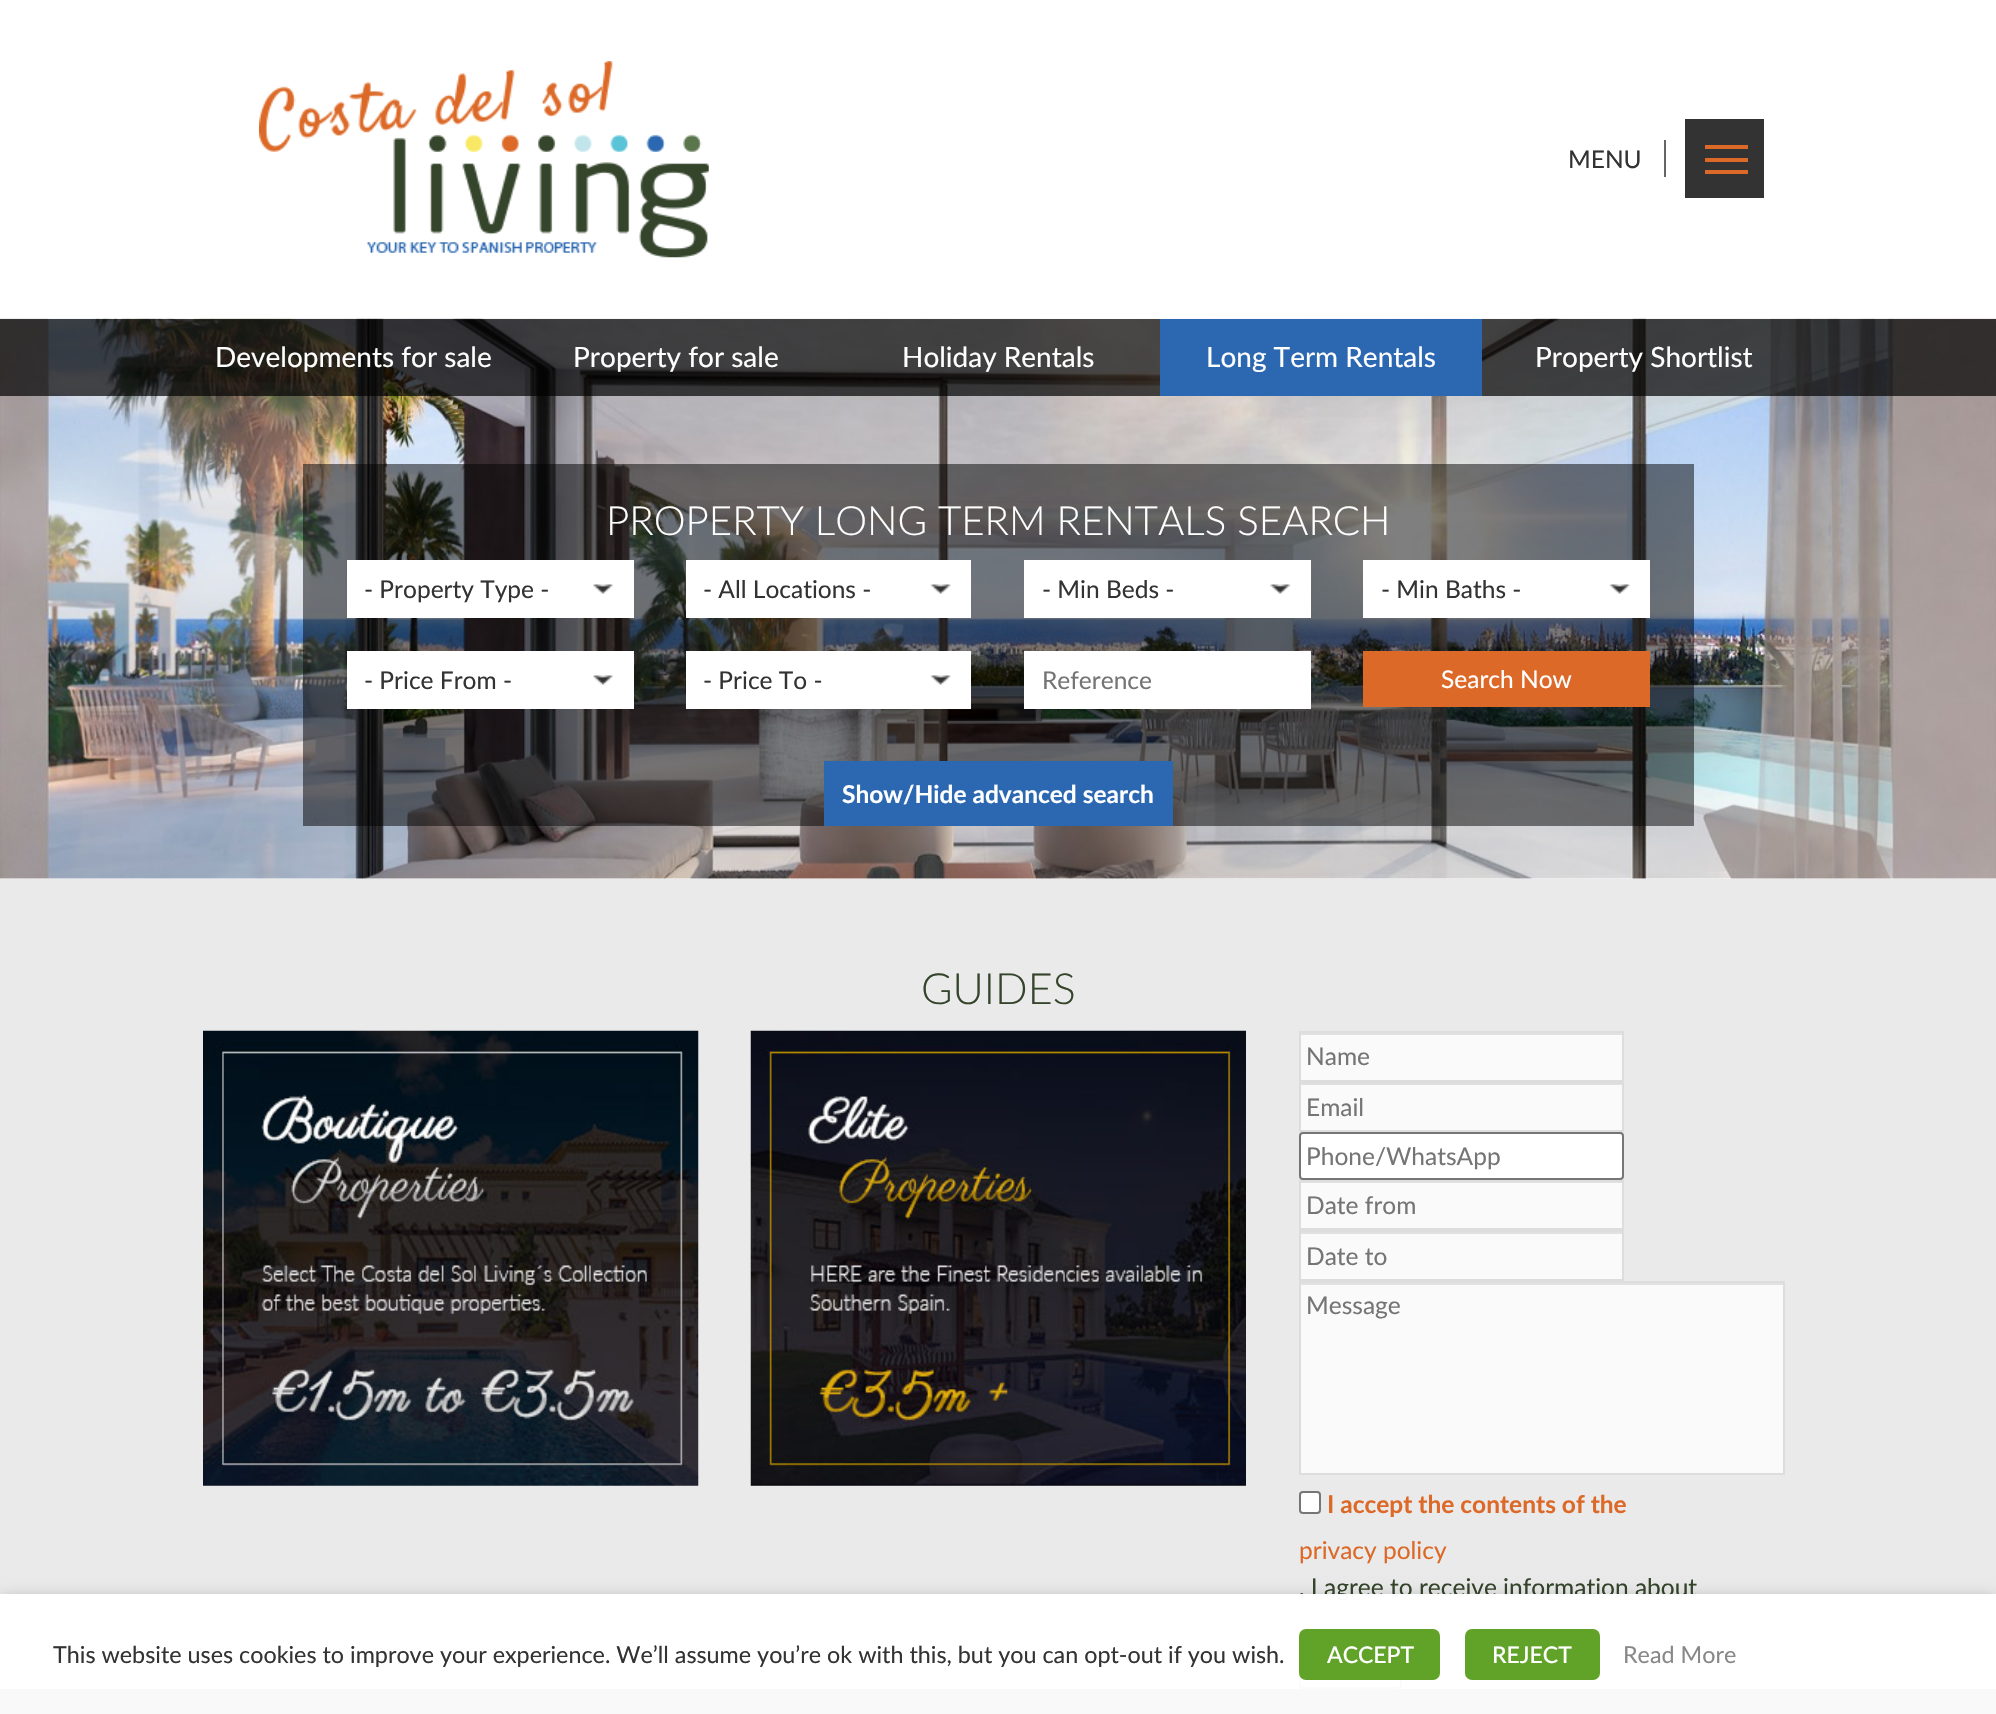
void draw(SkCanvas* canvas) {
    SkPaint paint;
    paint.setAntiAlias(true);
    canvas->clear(0xFFFFFFFF);
    canvas->drawImageRect(SkImages::DeferredFromEncodedData(SkData::MakeFromFileName("img2.png")), SkRect::MakeXYWH(0, 318, 1996, 561), SkSamplingOptions());
    paint.setColor(0xB3FFFFFF);
    canvas->drawRect(SkRect::MakeXYWH(0, 318, 1996, 1), paint);
    canvas->drawImageRect(SkImages::DeferredFromEncodedData(SkData::MakeFromFileName("img1.png")), SkRect::MakeXYWH(259, 61, 450, 197), SkSamplingOptions());
    paint.setColor(0xFF666666);
    canvas->drawRect(SkRect::MakeXYWH(1664, 140, 2, 37), paint);
    SkFont font1(fontMgr->matchFamilyStyle("Lato", SkFontStyle::Normal()), 24.5f);
    font1.setSubpixel(true);
    paint.setColor(0xFF333333);
    canvas->drawString("MENU", 1568, 168, font1, paint);
    canvas->drawRect(SkRect::MakeXYWH(1685, 119, 79, 79), paint);
    paint.setColor(0xFFDC6927);
    canvas->drawRect(SkRect::MakeXYWH(1705, 145, 43, 4), paint);
    canvas->drawRect(SkRect::MakeXYWH(1705, 158, 43, 4), paint);
    canvas->drawRect(SkRect::MakeXYWH(1705, 170, 43, 4), paint);
    paint.setColor(0xB3000000);
    canvas->drawRect(SkRect::MakeXYWH(0, 319, 1996, 77), paint);
    SkFont font2(fontMgr->matchFamilyStyle("Lato", SkFontStyle::Normal()), 28);
    font2.setSubpixel(true);
    paint.setColor(0xFFFFFFFF);
    canvas->drawString("Developments for sale", 215, 367, font2, paint);
    canvas->drawString("Property for sale", 573, 367, font2, paint);
    canvas->drawString("Holiday Rentals", 902, 367, font2, paint);
    paint.setColor(0xFF2B68B1);
    canvas->drawRect(SkRect::MakeXYWH(1160, 319, 322, 77), paint);
    paint.setColor(0xFFFFFFFF);
    canvas->drawString("Long Term Rentals", 1206, 367, font2, paint);
    canvas->drawString("Property Shortlist", 1535, 367, font2, paint);
    paint.setColor(0x80000000);
    canvas->drawRect(SkRect::MakeXYWH(303, 464, 1391, 362), paint);
    SkFont font3(fontMgr->matchFamilyStyle("Lato", SkFontStyle(300, SkFontStyle::kNormal_Width, SkFontStyle::kUpright_Slant)), 40.25f);
    font3.setSubpixel(true);
    paint.setColor(0xFFFFFFFF);
    canvas->drawString("PROPERTY LONG TERM RENTALS SEARCH", 606, 535, font3, paint);
    canvas->drawRect(SkRect::MakeXYWH(347, 560, 287, 58), paint);
    canvas->drawImageRect(SkImages::DeferredFromEncodedData(SkData::MakeFromFileName("img3.png")), SkRect::MakeXYWH(593, 584, 20, 10), SkSamplingOptions());
    paint.setColor(0xFF333333);
    canvas->drawString("- Property Type -", 364, 598, font1, paint);
    paint.setColor(0xFFFFFFFF);
    canvas->drawRect(SkRect::MakeXYWH(686, 560, 285, 58), paint);
    canvas->drawImageRect(SkImages::DeferredFromEncodedData(SkData::MakeFromFileName("img4.png")), SkRect::MakeXYWH(930, 584, 21, 10), SkSamplingOptions());
    paint.setColor(0xFF333333);
    canvas->drawString("- All Locations -", 703, 598, font1, paint);
    paint.setColor(0xFFFFFFFF);
    canvas->drawRect(SkRect::MakeXYWH(1024, 560, 287, 58), paint);
    canvas->drawImageRect(SkImages::DeferredFromEncodedData(SkData::MakeFromFileName("img5.png")), SkRect::MakeXYWH(1270, 584, 21, 10), SkSamplingOptions());
    paint.setColor(0xFF333333);
    canvas->drawString("- Min Beds -", 1042, 598, font1, paint);
    paint.setColor(0xFFFFFFFF);
    canvas->drawRect(SkRect::MakeXYWH(1363, 560, 287, 58), paint);
    canvas->drawImageRect(SkImages::DeferredFromEncodedData(SkData::MakeFromFileName("img6.png")), SkRect::MakeXYWH(1609, 584, 21, 10), SkSamplingOptions());
    paint.setColor(0xFF333333);
    canvas->drawString("- Min Baths -", 1381, 598, font1, paint);
    paint.setColor(0xFFFFFFFF);
    canvas->drawRect(SkRect::MakeXYWH(347, 651, 287, 58), paint);
    canvas->drawImageRect(SkImages::DeferredFromEncodedData(SkData::MakeFromFileName("img3.png")), SkRect::MakeXYWH(593, 675, 20, 10), SkSamplingOptions());
    paint.setColor(0xFF333333);
    canvas->drawString("- Price From -", 364, 689, font1, paint);
    paint.setColor(0xFFFFFFFF);
    canvas->drawRect(SkRect::MakeXYWH(686, 651, 285, 58), paint);
    canvas->drawImageRect(SkImages::DeferredFromEncodedData(SkData::MakeFromFileName("img4.png")), SkRect::MakeXYWH(930, 675, 21, 10), SkSamplingOptions());
    paint.setColor(0xFF333333);
    canvas->drawString("- Price To -", 703, 689, font1, paint);
    paint.setColor(0xFFFFFFFF);
    canvas->drawRect(SkRect::MakeXYWH(1024, 651, 287, 58), paint);
    paint.setColor(0xFF757575);
    canvas->drawString("Reference", 1042, 689, font1, paint);
    paint.setColor(0xFFDC6927);
    canvas->drawRect(SkRect::MakeXYWH(1363, 651, 287, 56), paint);
    paint.setColor(0xFFFFFFFF);
    canvas->drawString("Search Now", 1441, 688, font1, paint);
    paint.setColor(0xFF2B68B1);
    canvas->drawRect(SkRect::MakeXYWH(824, 761, 349, 65), paint);
    SkFont font4(fontMgr->matchFamilyStyle("Lato", SkFontStyle::Bold()), 24.5f);
    font4.setSubpixel(true);
    paint.setColor(0xFFFFFFFF);
    canvas->drawString("Show/Hide advanced search", 842, 803, font4, paint);
    paint.setColor(0xFFEAEAEA);
    canvas->drawRect(SkRect::MakeXYWH(0, 879, 1996, 810), paint);
    SkFont font5(fontMgr->matchFamilyStyle("Lato", SkFontStyle(300, SkFontStyle::kNormal_Width, SkFontStyle::kUpright_Slant)), 43);
    font5.setSubpixel(true);
    paint.setColor(0xFF35452C);
    canvas->drawString("GUIDES", 921, 1004, font5, paint);
    canvas->drawImageRect(SkImages::DeferredFromEncodedData(SkData::MakeFromFileName("img7.png")), SkRect::MakeXYWH(203, 1030, 496, 456), SkSamplingOptions());
    canvas->drawImageRect(SkImages::DeferredFromEncodedData(SkData::MakeFromFileName("img8.png")), SkRect::MakeXYWH(750, 1030, 496, 456), SkSamplingOptions());
    paint.setColor(0xFFFAFAFA);
    canvas->drawRect(SkRect::MakeXYWH(1301, 1035, 321, 45), paint);
    paint.setColor(0xFFE1E1E1);
    canvas->drawRect(SkRect::MakeXYWH(1300, 1033, 322, 2), paint);
    paint.setStyle(SkPaint::kStroke_Style);
    paint.setStrokeWidth(2);
    paint.setColor(0xFFDDDDDD);
    canvas->drawRect(SkRect::MakeXYWH(1300, 1032, 323, 49), paint);
    paint.setStyle(SkPaint::kFill_Style);
    paint.setColor(0xFF757575);
    canvas->drawString("Name", 1306, 1065, font1, paint);
    paint.setColor(0xFFFAFAFA);
    canvas->drawRect(SkRect::MakeXYWH(1301, 1085, 321, 45), paint);
    paint.setColor(0xFFE1E1E1);
    canvas->drawRect(SkRect::MakeXYWH(1300, 1084, 322, 1), paint);
    paint.setStyle(SkPaint::kStroke_Style);
    paint.setColor(0xFFDDDDDD);
    canvas->drawRect(SkRect::MakeXYWH(1300, 1083, 323, 48), paint);
    paint.setStyle(SkPaint::kFill_Style);
    paint.setColor(0xFF757575);
    canvas->drawString("Email", 1306, 1116, font1, paint);
    paint.setColor(0xFFFFFFFF);
    canvas->drawRoundRect(SkRect::MakeXYWH(1300, 1133, 323, 46), 3, 3, paint);
    paint.setStyle(SkPaint::kStroke_Style);
    paint.setColor(0xFF767676);
    canvas->drawRoundRect(SkRect::MakeXYWH(1300, 1133, 323, 46), 3, 3, paint);
    paint.setStyle(SkPaint::kFill_Style);
    paint.setColor(0xFF757575);
    canvas->drawString("Phone/WhatsApp", 1306, 1165, font1, paint);
    paint.setColor(0xFFFAFAFA);
    canvas->drawRect(SkRect::MakeXYWH(1301, 1183, 321, 45), paint);
    paint.setColor(0xFFE1E1E1);
    canvas->drawRect(SkRect::MakeXYWH(1300, 1182, 322, 1), paint);
    paint.setStyle(SkPaint::kStroke_Style);
    paint.setColor(0xFFDDDDDD);
    canvas->drawRect(SkRect::MakeXYWH(1300, 1181, 323, 48), paint);
    paint.setStyle(SkPaint::kFill_Style);
    paint.setColor(0xFF757575);
    canvas->drawString("Date from", 1306, 1214, font1, paint);
    paint.setColor(0xFFFAFAFA);
    canvas->drawRect(SkRect::MakeXYWH(1301, 1234, 321, 45), paint);
    paint.setColor(0xFFE1E1E1);
    canvas->drawRect(SkRect::MakeXYWH(1300, 1232, 322, 2), paint);
    paint.setStyle(SkPaint::kStroke_Style);
    paint.setColor(0xFFDDDDDD);
    canvas->drawRect(SkRect::MakeXYWH(1300, 1231, 323, 49), paint);
    paint.setStyle(SkPaint::kFill_Style);
    paint.setColor(0xFF757575);
    canvas->drawString("Date to", 1306, 1265, font1, paint);
    paint.setColor(0xFFFAFAFA);
    canvas->drawRect(SkRect::MakeXYWH(1301, 1285, 482, 188), paint);
    paint.setColor(0xFFE1E1E1);
    canvas->drawRect(SkRect::MakeXYWH(1300, 1283, 483, 2), paint);
    paint.setStyle(SkPaint::kStroke_Style);
    paint.setColor(0xFFDDDDDD);
    canvas->drawRect(SkRect::MakeXYWH(1300, 1282, 484, 192), paint);
    paint.setStyle(SkPaint::kFill_Style);
    paint.setColor(0xFF757575);
    canvas->drawString("Message", 1306, 1314, font1, paint);
    paint.setColor(0xFFFFFFFF);
    canvas->drawRoundRect(SkRect::MakeXYWH(1300, 1492, 20, 21), 3, 3, paint);
    paint.setStyle(SkPaint::kStroke_Style);
    paint.setColor(0xFF767676);
    canvas->drawRoundRect(SkRect::MakeXYWH(1300, 1492, 20, 21), 3, 3, paint);
    paint.setStyle(SkPaint::kFill_Style);
    paint.setColor(0xFFDC6927);
    canvas->drawString("I accept the contents of the", 1327, 1513, font4, paint);
    canvas->drawString("privacy policy", 1299, 1559, font1, paint);
    paint.setColor(0xFF35452C);
    canvas->drawString(", I agree to receive information about", 1299, 1596, font1, paint);
    paint.setColor(0xFFEFEFEF);
    canvas->drawRoundRect(SkRect::MakeXYWH(1300, 1643, 101, 45), 3, 3, paint);
    paint.setStyle(SkPaint::kStroke_Style);
    paint.setColor(0xFF767676);
    canvas->drawRoundRect(SkRect::MakeXYWH(1300, 1643, 101, 45), 3, 3, paint);
    paint.setStyle(SkPaint::kFill_Style);
    paint.setColor(0xFF2A2A2A);
    canvas->drawRect(SkRect::MakeXYWH(0, 1689, 1996, 25), paint);
    canvas->save();
    canvas->clipPath(SkPathBuilder(SkPathFillType::kEvenOdd).moveTo(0, 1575).lineTo(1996, 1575).lineTo(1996, 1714).lineTo(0, 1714).close().moveTo(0, 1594).lineTo(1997, 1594).lineTo(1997, 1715).lineTo(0, 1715).close().detach(), true);
    paint.setColor(0x80000000);
    paint.setMaskFilter(SkMaskFilter::MakeBlur(kNormal_SkBlurStyle, 9));
    canvas->drawRect(SkRect::MakeXYWH(0, 1603, 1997, 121), paint);
    paint.setMaskFilter(nullptr);
    canvas->restore();
    paint.setColor(0xF7FFFFFF);
    canvas->drawRect(SkRect::MakeXYWH(0, 1594, 1996, 120), paint);
    SkFont font6(fontMgr->matchFamilyStyle("Lato", SkFontStyle::Normal()), 23.33f);
    font6.setSubpixel(true);
    paint.setColor(0xFF333333);
    canvas->drawString("This website uses cookies to improve your experience. We’ll assume you’re ok with this, but you can opt-out if you wish.", 53, 1663, font6, paint);
    paint.setColor(0xFF61A229);
    canvas->drawRoundRect(SkRect::MakeXYWH(1299, 1629, 141, 51), 7, 7, paint);
    SkFont font7(fontMgr->matchFamilyStyle("Lato", SkFontStyle(500, SkFontStyle::kNormal_Width, SkFontStyle::kUpright_Slant)), 23);
    font7.setSubpixel(true);
    paint.setColor(0xFFFFFFFF);
    canvas->drawString("ACCEPT", 1327, 1663, font7, paint);
    paint.setColor(0xFF61A229);
    canvas->drawRoundRect(SkRect::MakeXYWH(1465, 1629, 135, 51), 7, 7, paint);
    paint.setColor(0xFFFFFFFF);
    canvas->drawString("REJECT", 1492, 1663, font7, paint);
    paint.setColor(0xFF898888);
    canvas->drawString("Read More", 1623, 1663, font6, paint);
}
